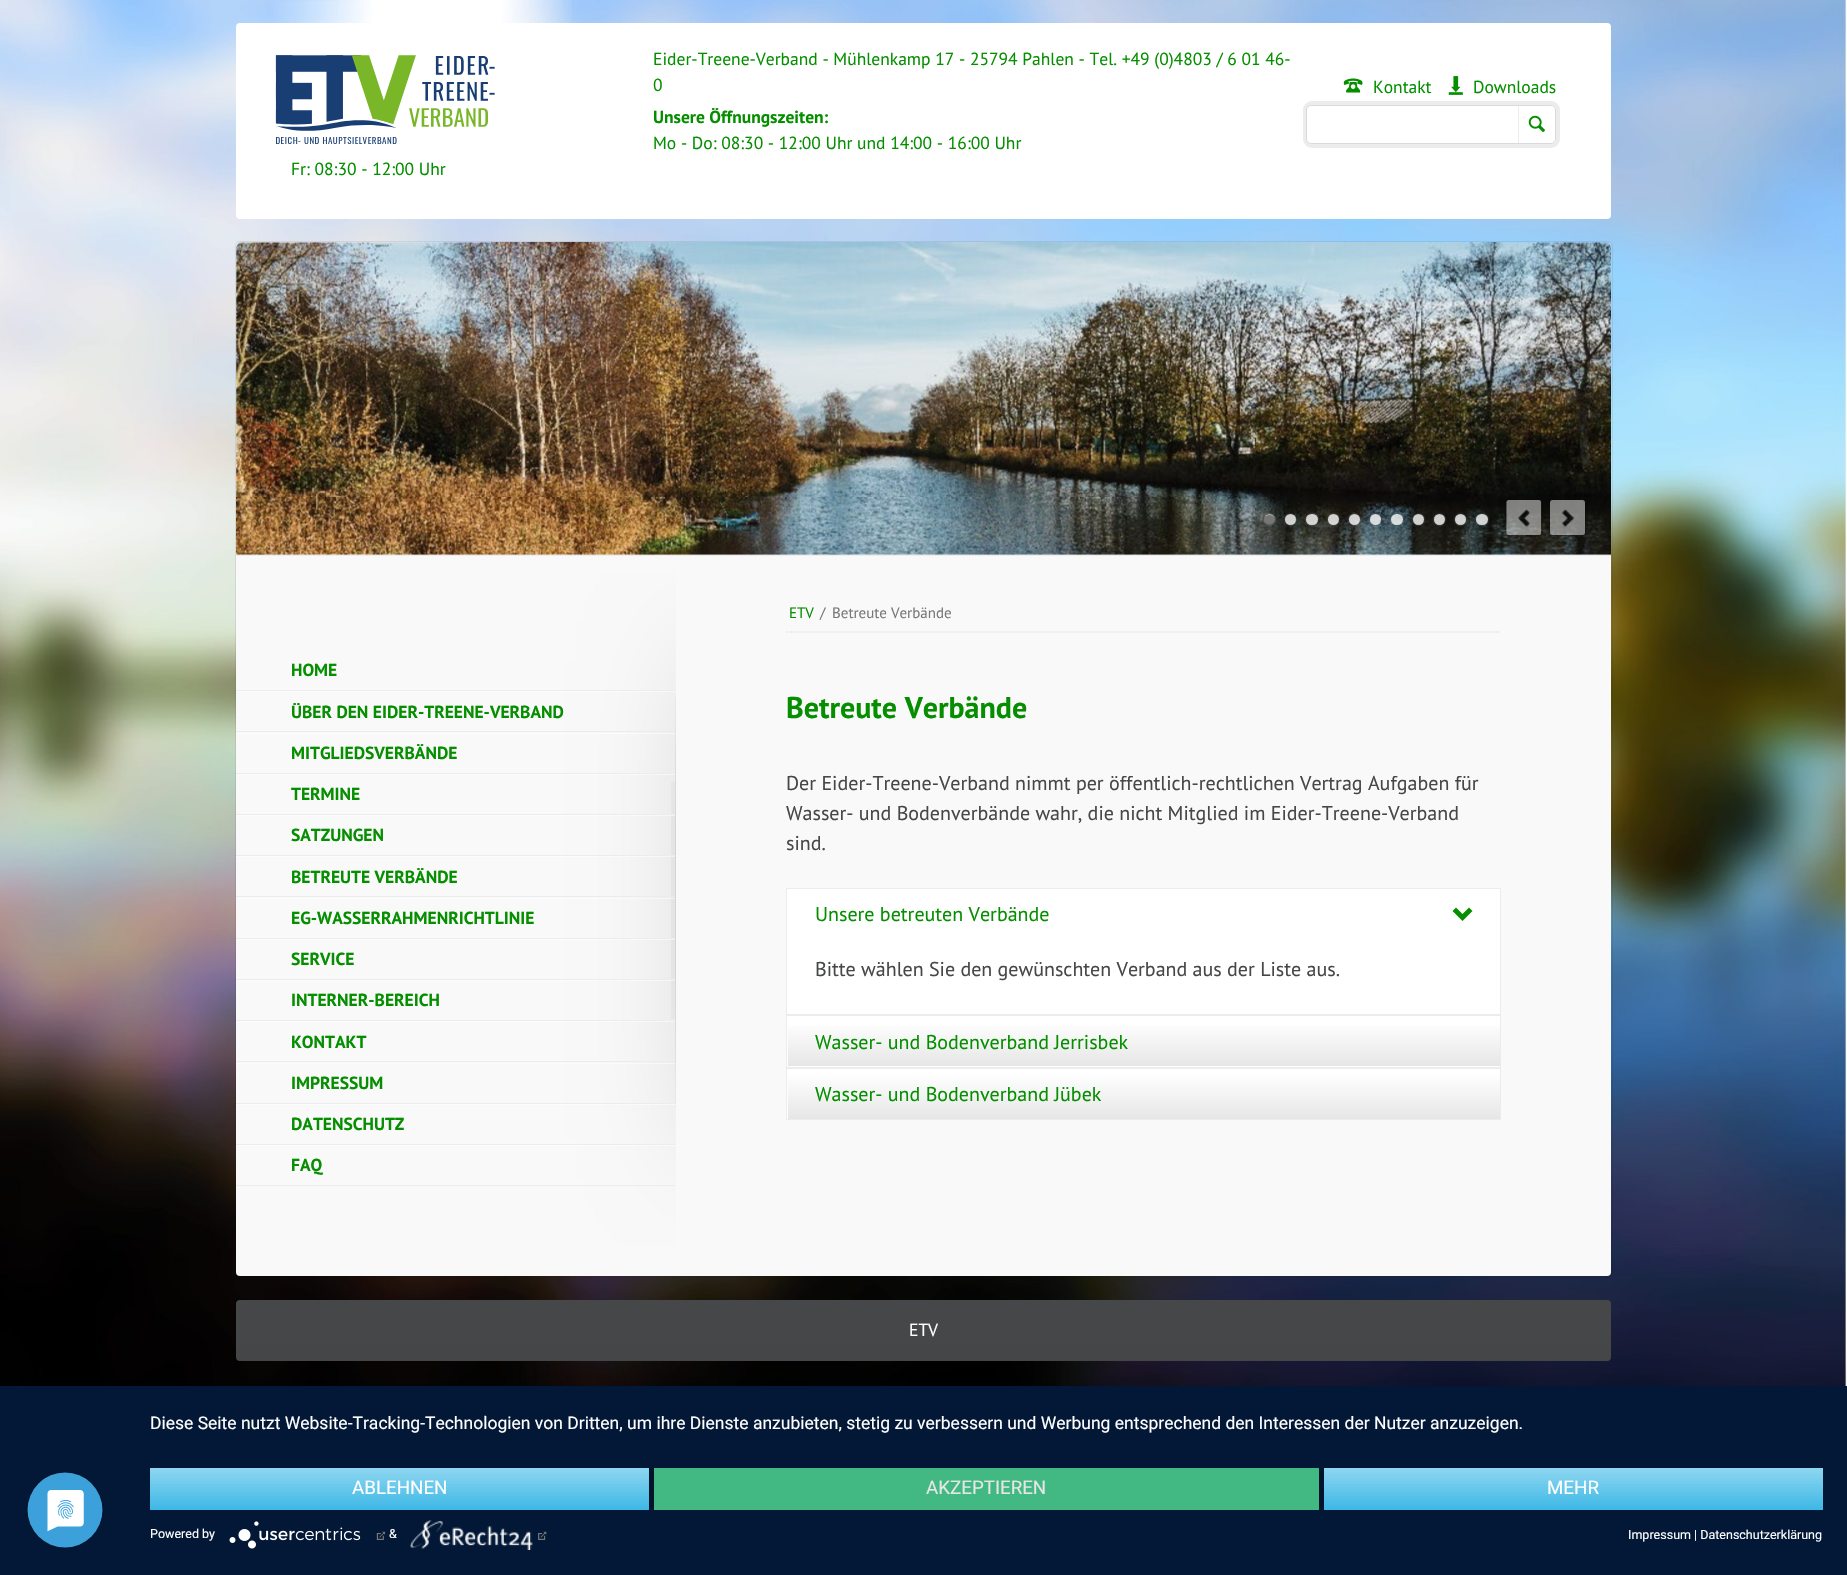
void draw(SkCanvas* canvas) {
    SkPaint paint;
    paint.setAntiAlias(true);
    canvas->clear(0xFFFFFFFF);
    canvas->drawImageRect(SkImages::DeferredFromEncodedData(SkData::MakeFromFileName("img1.png")), SkRect::MakeXYWH(0, 0, 1847, 1386), SkSamplingOptions());
    paint.setColor(0xFFFFFFFF);
    canvas->drawRoundRect(SkRect::MakeXYWH(236, 23, 1375, 196), 4, 4, paint);
    canvas->drawImageRect(SkImages::DeferredFromEncodedData(SkData::MakeFromFileName("img2.png")), SkRect::MakeXYWH(275, 55, 220, 89), SkSamplingOptions());
    SkFont font1(fontMgr->matchFamilyStyle("PT Sans", SkFontStyle::Normal()), 17.5f);
    font1.setSubpixel(true);
    paint.setColor(0xFF058F00);
    canvas->drawString("Eider-Treene-Verband - Mühlenkamp 17 - 25794 Pahlen - Tel. +49 (0)4803 / 6 01 46-", 653, 65, font1, paint);
    canvas->drawString("0", 653, 91, font1, paint);
    canvas->drawImageRect(SkImages::DeferredFromEncodedData(SkData::MakeFromFileName("img3.png")), SkRect::MakeXYWH(1343, 78, 20, 15), SkSamplingOptions());
    canvas->drawString("Kontakt", 1373, 93, font1, paint);
    canvas->drawImageRect(SkImages::DeferredFromEncodedData(SkData::MakeFromFileName("img4.png")), SkRect::MakeXYWH(1448, 76, 15, 19), SkSamplingOptions());
    canvas->drawString("Downloads", 1473, 93, font1, paint);
    SkFont font2(fontMgr->matchFamilyStyle("PT Sans", SkFontStyle::Bold()), 17.5f);
    font2.setSubpixel(true);
    canvas->drawString("Unsere Öffnungszeiten:", 653, 123, font2, paint);
    canvas->drawString("Mo - Do: 08:30 - 12:00 Uhr und 14:00 - 16:00 Uhr", 653, 149, font1, paint);
    canvas->drawString("Fr: 08:30 - 12:00 Uhr", 291, 175, font1, paint);
    paint.setStyle(SkPaint::kStroke_Style);
    paint.setStrokeWidth(4);
    paint.setColor(0xFFECECEC);
    canvas->drawRoundRect(SkRect::MakeXYWH(1305, 103, 253, 43), 7, 7, paint);
    paint.setStyle(SkPaint::kFill_Style);
    paint.setColor(0xFFFFFFFF);
    canvas->drawRoundRect(SkRect::MakeXYWH(1306.5f, 105.5f, 249, 38), 4.5f, 4.5f, paint);
    paint.setStyle(SkPaint::kStroke_Style);
    paint.setStrokeWidth(1);
    paint.setColor(0xFFDADADA);
    canvas->drawRoundRect(SkRect::MakeXYWH(1306.5f, 105.5f, 249, 38), 4.5f, 4.5f, paint);
    paint.setStyle(SkPaint::kFill_Style);
    paint.setColor(0xFFECECEC);
    canvas->drawRect(SkRect::MakeXYWH(1518, 106, 1, 37), paint);
    canvas->drawImageRect(SkImages::DeferredFromEncodedData(SkData::MakeFromFileName("img5.png")), SkRect::MakeXYWH(1528, 115, 17, 17), SkSamplingOptions());
    paint.setColor(0xFFF9F9F9);
    canvas->drawRoundRect(SkRect::MakeXYWH(236, 243, 1375, 1033), 4, 4, paint);
    paint.setStyle(SkPaint::kStroke_Style);
    paint.setColor(0x12000000);
    canvas->drawRoundRect(SkRect::MakeXYWH(235.5f, 241.5f, 1377, 1036), 4.5f, 4.5f, paint);
    paint.setStyle(SkPaint::kFill_Style);
    paint.setColor(0xFFECECEC);
    canvas->drawRect(SkRect::MakeXYWH(236, 555, 1375, 1), paint);
    paint.setColor(0xFFFFFFFF);
    canvas->drawPath(SkPathBuilder().moveTo(241, 243).lineTo(1606, 243).cubicTo(1609, 243, 1611, 245, 1611, 248).lineTo(1611, 555).lineTo(236, 555).lineTo(236, 248).cubicTo(236, 245, 238, 243, 241, 243).close().detach(), paint);
    canvas->drawImageRect(SkImages::DeferredFromEncodedData(SkData::MakeFromFileName("img6.png")), SkRect::MakeXYWH(236, 242, 1375, 313), SkSamplingOptions());
    canvas->drawImageRect(SkImages::DeferredFromEncodedData(SkData::MakeFromFileName("img7.png")), SkRect::MakeXYWH(1506, 500, 36, 35), SkSamplingOptions());
    paint.setStyle(SkPaint::kStroke_Style);
    paint.setColor(0x1A000000);
    canvas->drawRoundRect(SkRect::MakeXYWH(1505.5f, 499.5f, 37, 36), 3.5f, 3.5f, paint);
    canvas->drawImageRect(SkImages::DeferredFromEncodedData(SkData::MakeFromFileName("img8.png")), SkRect::MakeXYWH(1550, 500, 35, 35), SkSamplingOptions());
    canvas->drawRoundRect(SkRect::MakeXYWH(1549.5f, 499.5f, 36, 36), 3.5f, 3.5f, paint);
    paint.setColor(0xFF555555);
    canvas->drawCircle(1269.5f, 519.5f, 6, paint);
    paint.setStyle(SkPaint::kFill_Style);
    paint.setColor(0xFF777777);
    canvas->drawCircle(1269.5f, 519.5f, 5.5f, paint);
    paint.setColor(0x4D000000);
    canvas->drawPath(SkPathBuilder().moveTo(1264.5f, 522).cubicTo(1267, 525.5f, 1273, 524.5f, 1275, 520.5f).cubicTo(1274, 525.5f, 1266.5f, 526.5f, 1264.5f, 522).close().detach(), paint);
    paint.setColor(0x80FFFFFF);
    canvas->drawPath(SkPathBuilder().moveTo(1269, 515).cubicTo(1272, 515, 1274, 516.5f, 1275, 518.5f).cubicTo(1274, 513.5f, 1266.5f, 512.5f, 1264.5f, 517).cubicTo(1265.5f, 516, 1267, 515, 1269, 515).close().detach(), paint);
    canvas->save();
    canvas->clipPath(SkPathBuilder(SkPathFillType::kEvenOdd).moveTo(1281, 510).lineTo(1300, 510).lineTo(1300, 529).lineTo(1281, 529).close().moveTo(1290.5f, 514).cubicTo(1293.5f, 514, 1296, 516.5f, 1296, 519.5f).cubicTo(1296, 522.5f, 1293.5f, 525, 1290.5f, 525).cubicTo(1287.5f, 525, 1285, 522.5f, 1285, 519.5f).cubicTo(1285, 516.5f, 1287.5f, 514, 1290.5f, 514).close().detach(), true);
    paint.setColor(0xFF777777);
    paint.setMaskFilter(SkMaskFilter::MakeBlur(kNormal_SkBlurStyle, 1));
    canvas->drawRoundRect(SkRect::MakeXYWH(1285, 514, 11, 11), 5.5f, 5.5f, paint);
    paint.setMaskFilter(nullptr);
    canvas->restore();
    paint.setColor(0xCCFFFFFF);
    canvas->drawCircle(1290.5f, 519.5f, 5.5f, paint);
    canvas->save();
    canvas->clipPath(SkPathBuilder(SkPathFillType::kEvenOdd).moveTo(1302, 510).lineTo(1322, 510).lineTo(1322, 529).lineTo(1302, 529).close().moveTo(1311.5f, 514).lineTo(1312.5f, 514).cubicTo(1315.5f, 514, 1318, 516.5f, 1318, 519.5f).cubicTo(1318, 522.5f, 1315.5f, 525, 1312.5f, 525).lineTo(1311.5f, 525).cubicTo(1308.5f, 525, 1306, 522.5f, 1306, 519.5f).cubicTo(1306, 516.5f, 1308.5f, 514, 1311.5f, 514).close().detach(), true);
    paint.setColor(0xFF777777);
    paint.setMaskFilter(SkMaskFilter::MakeBlur(kNormal_SkBlurStyle, 1));
    canvas->drawRoundRect(SkRect::MakeXYWH(1306, 514, 12, 11), 5.5f, 5.5f, paint);
    paint.setMaskFilter(nullptr);
    canvas->restore();
    paint.setColor(0xCCFFFFFF);
    canvas->drawRoundRect(SkRect::MakeXYWH(1306, 514, 12, 11), 5.5f, 5.5f, paint);
    canvas->save();
    canvas->clipPath(SkPathBuilder(SkPathFillType::kEvenOdd).moveTo(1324, 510).lineTo(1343, 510).lineTo(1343, 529).lineTo(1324, 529).close().moveTo(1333.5f, 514).cubicTo(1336.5f, 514, 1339, 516.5f, 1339, 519.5f).cubicTo(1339, 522.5f, 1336.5f, 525, 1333.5f, 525).cubicTo(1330.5f, 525, 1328, 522.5f, 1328, 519.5f).cubicTo(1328, 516.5f, 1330.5f, 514, 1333.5f, 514).close().detach(), true);
    paint.setColor(0xFF777777);
    paint.setMaskFilter(SkMaskFilter::MakeBlur(kNormal_SkBlurStyle, 1));
    canvas->drawRoundRect(SkRect::MakeXYWH(1328, 514, 11, 11), 5.5f, 5.5f, paint);
    paint.setMaskFilter(nullptr);
    canvas->restore();
    paint.setColor(0xCCFFFFFF);
    canvas->drawCircle(1333.5f, 519.5f, 5.5f, paint);
    canvas->save();
    canvas->clipPath(SkPathBuilder(SkPathFillType::kEvenOdd).moveTo(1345, 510).lineTo(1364, 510).lineTo(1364, 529).lineTo(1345, 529).close().moveTo(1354.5f, 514).cubicTo(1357.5f, 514, 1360, 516.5f, 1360, 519.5f).cubicTo(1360, 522.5f, 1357.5f, 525, 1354.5f, 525).cubicTo(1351.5f, 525, 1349, 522.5f, 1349, 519.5f).cubicTo(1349, 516.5f, 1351.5f, 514, 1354.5f, 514).close().detach(), true);
    paint.setColor(0xFF777777);
    paint.setMaskFilter(SkMaskFilter::MakeBlur(kNormal_SkBlurStyle, 1));
    canvas->drawRoundRect(SkRect::MakeXYWH(1349, 514, 11, 11), 5.5f, 5.5f, paint);
    paint.setMaskFilter(nullptr);
    canvas->restore();
    paint.setColor(0xCCFFFFFF);
    canvas->drawCircle(1354.5f, 519.5f, 5.5f, paint);
    canvas->save();
    canvas->clipPath(SkPathBuilder(SkPathFillType::kEvenOdd).moveTo(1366, 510).lineTo(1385, 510).lineTo(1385, 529).lineTo(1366, 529).close().moveTo(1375.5f, 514).cubicTo(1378.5f, 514, 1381, 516.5f, 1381, 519.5f).cubicTo(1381, 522.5f, 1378.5f, 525, 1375.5f, 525).cubicTo(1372.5f, 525, 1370, 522.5f, 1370, 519.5f).cubicTo(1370, 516.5f, 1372.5f, 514, 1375.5f, 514).close().detach(), true);
    paint.setColor(0xFF777777);
    paint.setMaskFilter(SkMaskFilter::MakeBlur(kNormal_SkBlurStyle, 1));
    canvas->drawRoundRect(SkRect::MakeXYWH(1370, 514, 11, 11), 5.5f, 5.5f, paint);
    paint.setMaskFilter(nullptr);
    canvas->restore();
    paint.setColor(0xCCFFFFFF);
    canvas->drawCircle(1375.5f, 519.5f, 5.5f, paint);
    canvas->save();
    canvas->clipPath(SkPathBuilder(SkPathFillType::kEvenOdd).moveTo(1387, 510).lineTo(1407, 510).lineTo(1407, 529).lineTo(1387, 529).close().moveTo(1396.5f, 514).lineTo(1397.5f, 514).cubicTo(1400.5f, 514, 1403, 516.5f, 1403, 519.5f).cubicTo(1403, 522.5f, 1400.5f, 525, 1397.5f, 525).lineTo(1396.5f, 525).cubicTo(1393.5f, 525, 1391, 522.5f, 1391, 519.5f).cubicTo(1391, 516.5f, 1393.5f, 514, 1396.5f, 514).close().detach(), true);
    paint.setColor(0xFF777777);
    paint.setMaskFilter(SkMaskFilter::MakeBlur(kNormal_SkBlurStyle, 1));
    canvas->drawRoundRect(SkRect::MakeXYWH(1391, 514, 12, 11), 5.5f, 5.5f, paint);
    paint.setMaskFilter(nullptr);
    canvas->restore();
    paint.setColor(0xCCFFFFFF);
    canvas->drawRoundRect(SkRect::MakeXYWH(1391, 514, 12, 11), 5.5f, 5.5f, paint);
    canvas->save();
    canvas->clipPath(SkPathBuilder(SkPathFillType::kEvenOdd).moveTo(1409, 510).lineTo(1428, 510).lineTo(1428, 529).lineTo(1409, 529).close().moveTo(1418.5f, 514).cubicTo(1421.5f, 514, 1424, 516.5f, 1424, 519.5f).cubicTo(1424, 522.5f, 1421.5f, 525, 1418.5f, 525).cubicTo(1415.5f, 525, 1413, 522.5f, 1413, 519.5f).cubicTo(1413, 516.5f, 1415.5f, 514, 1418.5f, 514).close().detach(), true);
    paint.setColor(0xFF777777);
    paint.setMaskFilter(SkMaskFilter::MakeBlur(kNormal_SkBlurStyle, 1));
    canvas->drawRoundRect(SkRect::MakeXYWH(1413, 514, 11, 11), 5.5f, 5.5f, paint);
    paint.setMaskFilter(nullptr);
    canvas->restore();
    paint.setColor(0xCCFFFFFF);
    canvas->drawCircle(1418.5f, 519.5f, 5.5f, paint);
    canvas->save();
    canvas->clipPath(SkPathBuilder(SkPathFillType::kEvenOdd).moveTo(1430, 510).lineTo(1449, 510).lineTo(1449, 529).lineTo(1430, 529).close().moveTo(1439.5f, 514).cubicTo(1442.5f, 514, 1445, 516.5f, 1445, 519.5f).cubicTo(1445, 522.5f, 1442.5f, 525, 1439.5f, 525).cubicTo(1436.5f, 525, 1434, 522.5f, 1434, 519.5f).cubicTo(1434, 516.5f, 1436.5f, 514, 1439.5f, 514).close().detach(), true);
    paint.setColor(0xFF777777);
    paint.setMaskFilter(SkMaskFilter::MakeBlur(kNormal_SkBlurStyle, 1));
    canvas->drawRoundRect(SkRect::MakeXYWH(1434, 514, 11, 11), 5.5f, 5.5f, paint);
    paint.setMaskFilter(nullptr);
    canvas->restore();
    paint.setColor(0xCCFFFFFF);
    canvas->drawCircle(1439.5f, 519.5f, 5.5f, paint);
    canvas->save();
    canvas->clipPath(SkPathBuilder(SkPathFillType::kEvenOdd).moveTo(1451, 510).lineTo(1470, 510).lineTo(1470, 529).lineTo(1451, 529).close().moveTo(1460.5f, 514).cubicTo(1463.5f, 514, 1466, 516.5f, 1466, 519.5f).cubicTo(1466, 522.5f, 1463.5f, 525, 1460.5f, 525).cubicTo(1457.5f, 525, 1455, 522.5f, 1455, 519.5f).cubicTo(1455, 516.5f, 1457.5f, 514, 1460.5f, 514).close().detach(), true);
    paint.setColor(0xFF777777);
    paint.setMaskFilter(SkMaskFilter::MakeBlur(kNormal_SkBlurStyle, 1));
    canvas->drawRoundRect(SkRect::MakeXYWH(1455, 514, 11, 11), 5.5f, 5.5f, paint);
    paint.setMaskFilter(nullptr);
    canvas->restore();
    paint.setColor(0xCCFFFFFF);
    canvas->drawCircle(1460.5f, 519.5f, 5.5f, paint);
    canvas->save();
    canvas->clipPath(SkPathBuilder(SkPathFillType::kEvenOdd).moveTo(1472, 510).lineTo(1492, 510).lineTo(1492, 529).lineTo(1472, 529).close().moveTo(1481.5f, 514).lineTo(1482.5f, 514).cubicTo(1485.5f, 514, 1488, 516.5f, 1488, 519.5f).cubicTo(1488, 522.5f, 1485.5f, 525, 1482.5f, 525).lineTo(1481.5f, 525).cubicTo(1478.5f, 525, 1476, 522.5f, 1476, 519.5f).cubicTo(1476, 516.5f, 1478.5f, 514, 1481.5f, 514).close().detach(), true);
    paint.setColor(0xFF777777);
    paint.setMaskFilter(SkMaskFilter::MakeBlur(kNormal_SkBlurStyle, 1));
    canvas->drawRoundRect(SkRect::MakeXYWH(1476, 514, 12, 11), 5.5f, 5.5f, paint);
    paint.setMaskFilter(nullptr);
    canvas->restore();
    paint.setColor(0xCCFFFFFF);
    canvas->drawRoundRect(SkRect::MakeXYWH(1476, 514, 12, 11), 5.5f, 5.5f, paint);
    paint.setStyle(SkPaint::kStroke_Style);
    paint.setStrokeWidth(1.2f);
    paint.setColor(0xFFDADADA);
    paint.setPathEffect(SkDashPathEffect::Make({{1.25f, 1.25f}}, 0));
    canvas->drawPath(SkPathBuilder().moveTo(786, 632).lineTo(1501, 632).detach(), paint);
    paint.setPathEffect(nullptr);
    paint.setStyle(SkPaint::kFill_Style);
    paint.setColor(0xFFFFFFFF);
    canvas->drawRect(SkRect::MakeXYWH(786.5f, 888.5f, 714, 126), paint);
    paint.setStyle(SkPaint::kStroke_Style);
    paint.setStrokeWidth(1);
    paint.setColor(0xFFECECEC);
    canvas->drawRect(SkRect::MakeXYWH(786.5f, 888.5f, 714, 126), paint);
    paint.setStyle(SkPaint::kFill_Style);
    paint.setColor(0xFFFFFFFF);
    canvas->drawRect(SkRect::MakeXYWH(786.5f, 1015.5f, 714, 52), paint);
    paint.setStyle(SkPaint::kStroke_Style);
    paint.setColor(0xFFECECEC);
    canvas->drawRect(SkRect::MakeXYWH(786.5f, 1015.5f, 714, 52), paint);
    paint.setStyle(SkPaint::kFill_Style);
    {
        const SkColor colors[] = {0xFFFFFFFF, 0xFFE6E6E6};
        const float stops[] = {0.1f, 1};
        const SkPoint ends[] = {{1144, 1016}, {1144, 1066}};
        paint.setShader(SkGradientShader::MakeLinear(ends, colors, stops, 2, SkTileMode::kClamp));
        paint.setAlpha(255);
    }
    canvas->drawRect(SkRect::MakeXYWH(788, 1026, 712, 40), paint);
    paint.setShader(nullptr);
    paint.setColor(0xFFFFFFFF);
    canvas->drawRect(SkRect::MakeXYWH(787, 1069, 1, 50), paint);
    paint.setStyle(SkPaint::kStroke_Style);
    paint.setColor(0xFFECECEC);
    canvas->drawRect(SkRect::MakeXYWH(786.5f, 1068.5f, 714, 51), paint);
    paint.setStyle(SkPaint::kFill_Style);
    {
        const SkColor colors[] = {0xFFFFFFFF, 0xFFE6E6E6};
        const float stops[] = {0.1f, 1};
        const SkPoint ends[] = {{1144, 1069}, {1144, 1119}};
        paint.setShader(SkGradientShader::MakeLinear(ends, colors, stops, 2, SkTileMode::kClamp));
        paint.setAlpha(255);
    }
    canvas->drawRect(SkRect::MakeXYWH(788, 1069, 712, 50), paint);
    paint.setShader(nullptr);
    paint.setColor(0xFF464749);
    canvas->drawRoundRect(SkRect::MakeXYWH(236, 1300, 1375, 61), 4, 4, paint);
    canvas->save();
    canvas->clipRect(SkRect::MakeXYWH(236, 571, 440, 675));
    paint.setColor(0x33000000);
    paint.setMaskFilter(SkMaskFilter::MakeBlur(kNormal_SkBlurStyle, 62.5f));
    canvas->drawRect(SkRect::MakeXYWH(714, 661, 220, 479), paint);
    paint.setMaskFilter(nullptr);
    canvas->restore();
    paint.setColor(0xFFECECEC);
    canvas->drawRect(SkRect::MakeXYWH(236, 690, 439, 1), paint);
    paint.setColor(0xFF058F00);
    canvas->drawString("HOME", 291, 676, font2, paint);
    paint.setColor(0x80FFFFFF);
    canvas->drawRect(SkRect::MakeXYWH(236, 691, 439, 1), paint);
    paint.setColor(0xFFECECEC);
    canvas->drawRect(SkRect::MakeXYWH(236, 731, 439, 1), paint);
    paint.setColor(0xFF058F00);
    canvas->drawString("ÜBER DEN EIDER-TREENE-VERBAND", 291, 718, font2, paint);
    paint.setColor(0x80FFFFFF);
    canvas->drawRect(SkRect::MakeXYWH(236, 733, 439, 1), paint);
    paint.setColor(0xFFECECEC);
    canvas->drawRect(SkRect::MakeXYWH(236, 773, 429, 1), paint);
    paint.setColor(0xFF058F00);
    canvas->drawString("MITGLIEDSVERBÄNDE", 291, 759, font2, paint);
    paint.setColor(0x80FFFFFF);
    canvas->drawRect(SkRect::MakeXYWH(236, 774, 439, 1), paint);
    {
        const SkColor colors[] = {0x00000000, 0x08000000, 0x08000000, 0x00000000};
        const float stops[] = {0, 0.35f, 0.65f, 1};
        const SkPoint ends[] = {{673, 661}, {673, 1140}};
        paint.setShader(SkGradientShader::MakeLinear(ends, colors, stops, 4, SkTileMode::kClamp));
        paint.setAlpha(255);
    }
    canvas->drawRect(SkRect::MakeXYWH(671, 782, 4, 237), paint);
    paint.setShader(nullptr);
    paint.setColor(0xFFECECEC);
    canvas->drawRect(SkRect::MakeXYWH(236, 814, 439, 1), paint);
    paint.setColor(0xFF058F00);
    canvas->drawString("TERMINE", 291, 800, font2, paint);
    paint.setColor(0x80FFFFFF);
    canvas->drawRect(SkRect::MakeXYWH(236, 815, 439, 1), paint);
    paint.setColor(0xFFECECEC);
    canvas->drawRect(SkRect::MakeXYWH(236, 855, 439, 1), paint);
    paint.setColor(0xFF058F00);
    canvas->drawString("SATZUNGEN", 291, 841, font2, paint);
    paint.setColor(0x80FFFFFF);
    canvas->drawRect(SkRect::MakeXYWH(236, 856, 439, 1), paint);
    paint.setColor(0xFFECECEC);
    canvas->drawRect(SkRect::MakeXYWH(236, 896, 439, 1), paint);
    paint.setColor(0xFF058F00);
    canvas->drawString("BETREUTE VERBÄNDE", 291, 883, font2, paint);
    paint.setColor(0x80FFFFFF);
    canvas->drawRect(SkRect::MakeXYWH(236, 898, 439, 1), paint);
    paint.setColor(0xFFECECEC);
    canvas->drawRect(SkRect::MakeXYWH(236, 938, 439, 1), paint);
    paint.setColor(0xFF058F00);
    canvas->drawString("EG-WASSERRAHMENRICHTLINIE", 291, 924, font2, paint);
    paint.setColor(0x80FFFFFF);
    canvas->drawRect(SkRect::MakeXYWH(236, 939, 439, 1), paint);
    paint.setColor(0xFFECECEC);
    canvas->drawRect(SkRect::MakeXYWH(236, 979, 439, 1), paint);
    paint.setColor(0xFF058F00);
    canvas->drawString("SERVICE", 291, 965, font2, paint);
    paint.setColor(0x80FFFFFF);
    canvas->drawRect(SkRect::MakeXYWH(236, 980, 439, 1), paint);
    paint.setColor(0xFFECECEC);
    canvas->drawRect(SkRect::MakeXYWH(236, 1020, 429, 1), paint);
    paint.setColor(0xFF058F00);
    canvas->drawString("INTERNER-BEREICH", 291, 1006, font2, paint);
    paint.setColor(0x80FFFFFF);
    canvas->drawRect(SkRect::MakeXYWH(236, 1021, 439, 1), paint);
    paint.setColor(0xFFECECEC);
    canvas->drawRect(SkRect::MakeXYWH(236, 1061, 439, 1), paint);
    paint.setColor(0xFF058F00);
    canvas->drawString("KONTAKT", 291, 1048, font2, paint);
    paint.setColor(0x80FFFFFF);
    canvas->drawRect(SkRect::MakeXYWH(236, 1063, 439, 1), paint);
    paint.setColor(0xFFECECEC);
    canvas->drawRect(SkRect::MakeXYWH(236, 1103, 439, 1), paint);
    paint.setColor(0xFF058F00);
    canvas->drawString("IMPRESSUM", 291, 1089, font2, paint);
    paint.setColor(0x80FFFFFF);
    canvas->drawRect(SkRect::MakeXYWH(236, 1104, 439, 1), paint);
    paint.setColor(0xFFECECEC);
    canvas->drawRect(SkRect::MakeXYWH(236, 1144, 439, 1), paint);
    paint.setColor(0xFF058F00);
    canvas->drawString("DATENSCHUTZ", 291, 1130, font2, paint);
    paint.setColor(0x80FFFFFF);
    canvas->drawRect(SkRect::MakeXYWH(236, 1145, 439, 1), paint);
    paint.setColor(0xFFECECEC);
    canvas->drawRect(SkRect::MakeXYWH(236, 1185, 439, 1), paint);
    paint.setColor(0xFF058F00);
    canvas->drawString("FAQ", 291, 1171, font2, paint);
    {
        const SkColor colors[] = {0x00000000, 0x1A000000, 0x1A000000, 0x00000000};
        const float stops[] = {0, 0.35f, 0.65f, 1};
        const SkPoint ends[] = {{678, 661}, {678, 1140}};
        paint.setShader(SkGradientShader::MakeLinear(ends, colors, stops, 4, SkTileMode::kClamp));
        paint.setAlpha(255);
    }
    canvas->drawRect(SkRect::MakeXYWH(675, 697, 1, 407), paint);
    SkFont font3(fontMgr->matchFamilyStyle("PT Sans", SkFontStyle::Normal()), 15);
    font3.setSubpixel(true);
    paint.setShader(nullptr);
    paint.setColor(0xFF058F00);
    canvas->drawString("ETV", 789, 618, font3, paint);
    paint.setColor(0xFF787878);
    canvas->drawString("/", 820, 618, font3, paint);
    canvas->drawString("Betreute Verbände", 832, 618, font3, paint);
    SkFont font4(fontMgr->matchFamilyStyle("PT Sans", SkFontStyle::Bold()), 30);
    font4.setSubpixel(true);
    paint.setColor(0xFF058F00);
    canvas->drawString("Betreute Verbände", 786, 718, font4, paint);
    SkFont font5(fontMgr->matchFamilyStyle("PT Sans", SkFontStyle::Normal()), 20);
    font5.setSubpixel(true);
    paint.setColor(0xFF464749);
    canvas->drawString("Der Eider-Treene-Verband nimmt per öffentlich-rechtlichen Vertrag Aufgaben für", 786, 790, font5, paint);
    canvas->drawString("Wasser- und Bodenverbände wahr, die nicht Mitglied im Eider-Treene-Verband", 786, 820, font5, paint);
    canvas->drawString("sind.", 786, 850, font5, paint);
    paint.setColor(0xFF058F00);
    canvas->drawString("Unsere betreuten Verbände", 815, 921, font5, paint);
    canvas->drawPath(SkPathBuilder().moveTo(1472.5f, 911).lineTo(1469, 907.5f).lineTo(1462.5f, 914).lineTo(1456, 907.5f).lineTo(1452.5f, 911).lineTo(1462.5f, 921).close().detach(), paint);
    paint.setColor(0xFF464749);
    canvas->drawString("Bitte wählen Sie den gewünschten Verband aus der Liste aus.", 815, 976, font5, paint);
    paint.setColor(0xFF058F00);
    canvas->drawString("Wasser- und Bodenverband Jerrisbek", 815, 1049, font5, paint);
    canvas->drawString("Wasser- und Bodenverband Jübek", 815, 1101, font5, paint);
    paint.setColor(0xFFFFFFFF);
    canvas->drawString("ETV", 909, 1336, font1, paint);
    paint.setColor(0x4D000000);
    paint.setMaskFilter(SkMaskFilter::MakeBlur(kNormal_SkBlurStyle, 22.5f));
    canvas->drawRect(SkRect::MakeXYWH(0, 1394, 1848, 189), paint);
    paint.setMaskFilter(nullptr);
    paint.setColor(0xFF021836);
    canvas->drawRect(SkRect::MakeXYWH(0, 1386, 1847, 189), paint);
    canvas->drawImageRect(SkImages::DeferredFromEncodedData(SkData::MakeFromFileName("img9.png")), SkRect::MakeXYWH(26, 1471, 78, 78), SkSamplingOptions());
    SkFont font6(fontMgr->matchFamilyStyle("Roboto", SkFontStyle::Normal()), 17.5f);
    font6.setSubpixel(true);
    paint.setColor(0xFFFFFFFF);
    canvas->drawString("Diese Seite nutzt Website-Tracking-Technologien von Dritten, um ihre Dienste anzubieten, stetig zu verbessern und Werbung entsprechend den Interessen der Nutzer anzuzeigen.", 150, 1429, font6, paint);
    canvas->save();
    canvas->clipRect(SkRect::MakeXYWH(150, 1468, 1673, 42));
    paint.setColor(0x66000000);
    paint.setMaskFilter(SkMaskFilter::MakeBlur(kNormal_SkBlurStyle, 2.5f));
    canvas->drawRect(SkRect::MakeXYWH(150, 1469, 499, 42), paint);
    paint.setMaskFilter(nullptr);
    canvas->restore();
    {
        const SkColor colors[] = {0xFF8ED6F0, 0xFF3DB8E6};
        const float stops[] = {0, 1};
        const SkPoint ends[] = {{399, 1468}, {399, 1510}};
        paint.setShader(SkGradientShader::MakeLinear(ends, colors, stops, 2, SkTileMode::kClamp));
        paint.setAlpha(255);
    }
    canvas->drawRect(SkRect::MakeXYWH(150, 1468, 499, 42), paint);
    SkFont font7(fontMgr->matchFamilyStyle("Roboto", SkFontStyle::Normal()), 18.75f);
    font7.setSubpixel(true);
    paint.setShader(nullptr);
    paint.setColor(0xFFFFFFFF);
    canvas->drawString("ABLEHNEN", 352, 1494, font7, paint);
    canvas->save();
    canvas->clipRect(SkRect::MakeXYWH(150, 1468, 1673, 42));
    paint.setColor(0x66000000);
    paint.setMaskFilter(SkMaskFilter::MakeBlur(kNormal_SkBlurStyle, 2.5f));
    canvas->drawRect(SkRect::MakeXYWH(654, 1469, 665, 42), paint);
    paint.setMaskFilter(nullptr);
    canvas->restore();
    paint.setColor(0xFF42B983);
    canvas->drawRect(SkRect::MakeXYWH(654, 1468, 665, 42), paint);
    paint.setColor(0xFFE6E6E6);
    canvas->drawString("AKZEPTIEREN", 926, 1494, font7, paint);
    canvas->save();
    canvas->clipRect(SkRect::MakeXYWH(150, 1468, 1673, 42));
    paint.setColor(0x66000000);
    paint.setMaskFilter(SkMaskFilter::MakeBlur(kNormal_SkBlurStyle, 2.5f));
    canvas->drawRect(SkRect::MakeXYWH(1324, 1469, 499, 42), paint);
    paint.setMaskFilter(nullptr);
    canvas->restore();
    {
        const SkColor colors[] = {0xFF8ED6F0, 0xFF3DB8E6};
        const float stops[] = {0, 1};
        const SkPoint ends[] = {{1573, 1468}, {1573, 1510}};
        paint.setShader(SkGradientShader::MakeLinear(ends, colors, stops, 2, SkTileMode::kClamp));
        paint.setAlpha(255);
    }
    canvas->drawRect(SkRect::MakeXYWH(1324, 1468, 499, 42), paint);
    paint.setShader(nullptr);
    paint.setColor(0xFFFFFFFF);
    canvas->drawString("MEHR", 1547, 1494, font7, paint);
    SkFont font8(fontMgr->matchFamilyStyle("Roboto", SkFontStyle::Normal()), 12.5f);
    font8.setSubpixel(true);
    canvas->drawString("Powered by", 150, 1538, font8, paint);
    canvas->drawImageRect(SkImages::DeferredFromEncodedData(SkData::MakeFromFileName("img10.png")), SkRect::MakeXYWH(229, 1521, 132, 28), SkSamplingOptions());
    canvas->drawImageRect(SkImages::DeferredFromEncodedData(SkData::MakeFromFileName("img11.png")), SkRect::MakeXYWH(376, 1531, 10, 9), SkSamplingOptions());
    canvas->drawString("&", 389, 1538, font8, paint);
    canvas->drawImageRect(SkImages::DeferredFromEncodedData(SkData::MakeFromFileName("img12.png")), SkRect::MakeXYWH(410, 1520, 123, 30), SkSamplingOptions());
    canvas->drawImageRect(SkImages::DeferredFromEncodedData(SkData::MakeFromFileName("img13.png")), SkRect::MakeXYWH(538, 1531, 9, 9), SkSamplingOptions());
    canvas->drawString("Impressum | Datenschutzerklärung", 1628, 1539, font8, paint);
}
